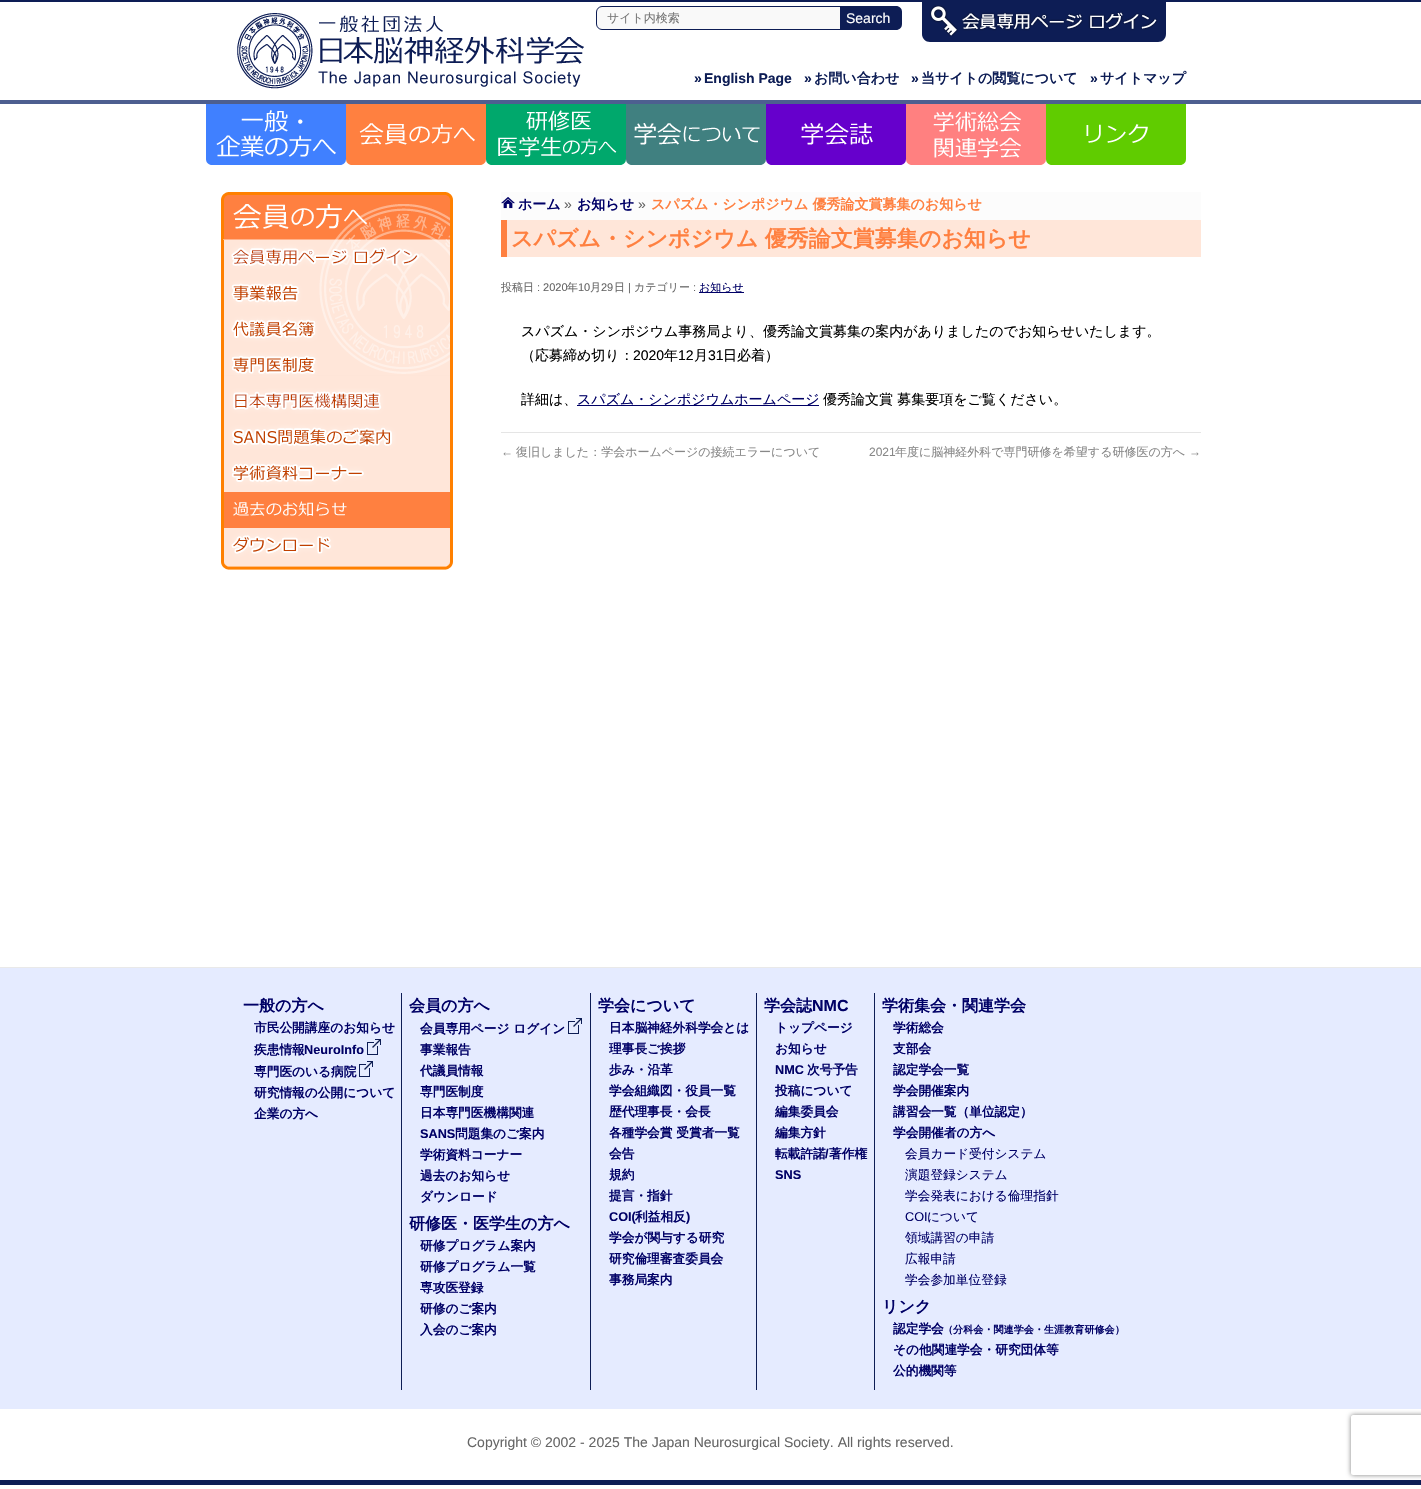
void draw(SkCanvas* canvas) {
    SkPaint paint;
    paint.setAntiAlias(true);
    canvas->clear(0xFFFFFFFF);
    paint.setColor(0xFF4D5F90);
    canvas->drawRect(SkRect::MakeXYWH(0, 100, 1421, 4), paint);
    paint.setColor(0xFF0D1D55);
    canvas->drawRect(SkRect::MakeXYWH(0, 0, 1421, 2), paint);
    canvas->drawImageRect(SkImages::DeferredFromEncodedData(SkData::MakeFromFileName("img1.png")), SkRect::MakeXYWH(237, 13, 347, 76), SkSamplingOptions());
    paint.setColor(0xFFF9F9F9);
    canvas->drawPath(SkPathBuilder().moveTo(602, 6.5f).lineTo(841.5f, 6.5f).lineTo(841.5f, 29.5f).lineTo(602, 29.5f).cubicTo(599, 29.5f, 596.5f, 27, 596.5f, 24).lineTo(596.5f, 12).cubicTo(596.5f, 9, 599, 6.5f, 602, 6.5f).close().detach(), paint);
    paint.setStyle(SkPaint::kStroke_Style);
    paint.setStrokeWidth(1);
    paint.setColor(0xFF0D1D55);
    canvas->drawPath(SkPathBuilder().moveTo(602, 6.5f).lineTo(841.5f, 6.5f).lineTo(841.5f, 29.5f).lineTo(602, 29.5f).cubicTo(599, 29.5f, 596.5f, 27, 596.5f, 24).lineTo(596.5f, 12).cubicTo(596.5f, 9, 599, 6.5f, 602, 6.5f).close().detach(), paint);
    SkFont font1(fontMgr->matchFamilyStyle("WenQuanYi Zen Hei", SkFontStyle(500, SkFontStyle::kNormal_Width, SkFontStyle::kUpright_Slant)), 12);
    font1.setSubpixel(true);
    paint.setStyle(SkPaint::kFill_Style);
    paint.setColor(0xFF757575);
    canvas->drawString("サイト内検索", 607, 22, font1, paint);
    paint.setColor(0xFF0D1D55);
    canvas->drawPath(SkPathBuilder().moveTo(840, 6).lineTo(896, 6).cubicTo(899.5f, 6, 902, 8.5f, 902, 12).lineTo(902, 24).cubicTo(902, 27.5f, 899.5f, 30, 896, 30).lineTo(840, 30).close().detach(), paint);
    SkFont font2(fontMgr->matchFamilyStyle("Liberation Sans", SkFontStyle::Normal()), 14);
    font2.setSubpixel(true);
    paint.setColor(0xFFFFFFFF);
    canvas->drawString("Search", 846, 23, font2, paint);
    paint.setColor(0xFF0D1D55);
    canvas->drawPath(SkPathBuilder().moveTo(922, 2).lineTo(1166, 2).lineTo(1166, 34).cubicTo(1166, 38.5f, 1162.5f, 42, 1158, 42).lineTo(930, 42).cubicTo(925.5f, 42, 922, 38.5f, 922, 34).close().detach(), paint);
    canvas->drawImageRect(SkImages::DeferredFromEncodedData(SkData::MakeFromFileName("img2.png")), SkRect::MakeXYWH(929, 5, 229, 32), SkSamplingOptions());
    SkFont font3(fontMgr->matchFamilyStyle("Liberation Sans", SkFontStyle::Bold()), 14);
    font3.setSubpixel(true);
    canvas->drawString("»", 694, 83, font3, paint);
    canvas->drawString("English Page", 704, 83, font3, paint);
    canvas->drawString("»", 804, 83, font3, paint);
    SkFont font4(fontMgr->matchFamilyStyle("WenQuanYi Zen Hei", SkFontStyle::Bold()), 14);
    font4.setSubpixel(true);
    canvas->drawString("お問い合わせ", 814, 83, font4, paint);
    canvas->drawString("»", 911, 83, font3, paint);
    canvas->drawString("当サイトの閲覧について", 921, 83, font4, paint);
    canvas->drawString("»", 1090, 83, font3, paint);
    canvas->drawString("サイトマップ", 1100, 83, font4, paint);
    paint.setColor(0xFF4080FF);
    canvas->drawPath(SkPathBuilder().moveTo(206, 104).lineTo(346, 104).lineTo(346, 159).cubicTo(346, 162.5f, 343.5f, 165, 340, 165).lineTo(212, 165).cubicTo(208.5f, 165, 206, 162.5f, 206, 159).close().detach(), paint);
    canvas->drawImageRect(SkImages::DeferredFromEncodedData(SkData::MakeFromFileName("img3.png")), SkRect::MakeXYWH(216, 110, 120, 47), SkSamplingOptions());
    paint.setColor(0xFFFF8040);
    canvas->drawPath(SkPathBuilder().moveTo(346, 104).lineTo(486, 104).lineTo(486, 159).cubicTo(486, 162.5f, 483.5f, 165, 480, 165).lineTo(352, 165).cubicTo(348.5f, 165, 346, 162.5f, 346, 159).close().detach(), paint);
    canvas->drawImageRect(SkImages::DeferredFromEncodedData(SkData::MakeFromFileName("img4.png")), SkRect::MakeXYWH(359, 123, 116, 22), SkSamplingOptions());
    paint.setColor(0xFF00A86C);
    canvas->drawPath(SkPathBuilder().moveTo(486, 104).lineTo(626, 104).lineTo(626, 159).cubicTo(626, 162.5f, 623.5f, 165, 620, 165).lineTo(492, 165).cubicTo(488.5f, 165, 486, 162.5f, 486, 159).close().detach(), paint);
    canvas->drawImageRect(SkImages::DeferredFromEncodedData(SkData::MakeFromFileName("img5.png")), SkRect::MakeXYWH(498, 110, 119, 47), SkSamplingOptions());
    paint.setColor(0xFF408080);
    canvas->drawPath(SkPathBuilder().moveTo(626, 104).lineTo(766, 104).lineTo(766, 159).cubicTo(766, 162.5f, 763.5f, 165, 760, 165).lineTo(632, 165).cubicTo(628.5f, 165, 626, 162.5f, 626, 159).close().detach(), paint);
    canvas->drawImageRect(SkImages::DeferredFromEncodedData(SkData::MakeFromFileName("img6.png")), SkRect::MakeXYWH(634, 123, 126, 22), SkSamplingOptions());
    paint.setColor(0xFF6600CC);
    canvas->drawPath(SkPathBuilder().moveTo(766, 104).lineTo(906, 104).lineTo(906, 159).cubicTo(906, 162.5f, 903.5f, 165, 900, 165).lineTo(772, 165).cubicTo(768.5f, 165, 766, 162.5f, 766, 159).close().detach(), paint);
    canvas->drawImageRect(SkImages::DeferredFromEncodedData(SkData::MakeFromFileName("img7.png")), SkRect::MakeXYWH(801, 123, 72, 22), SkSamplingOptions());
    paint.setColor(0xFFFF8080);
    canvas->drawPath(SkPathBuilder().moveTo(906, 104).lineTo(1046, 104).lineTo(1046, 159).cubicTo(1046, 162.5f, 1043.5f, 165, 1040, 165).lineTo(912, 165).cubicTo(908.5f, 165, 906, 162.5f, 906, 159).close().detach(), paint);
    canvas->drawImageRect(SkImages::DeferredFromEncodedData(SkData::MakeFromFileName("img8.png")), SkRect::MakeXYWH(933, 111, 88, 47), SkSamplingOptions());
    paint.setColor(0xFF60CC00);
    canvas->drawPath(SkPathBuilder().moveTo(1046, 104).lineTo(1186, 104).lineTo(1186, 159).cubicTo(1186, 162.5f, 1183.5f, 165, 1180, 165).lineTo(1052, 165).cubicTo(1048.5f, 165, 1046, 162.5f, 1046, 159).close().detach(), paint);
    canvas->drawImageRect(SkImages::DeferredFromEncodedData(SkData::MakeFromFileName("img9.png")), SkRect::MakeXYWH(1086, 124, 62, 19), SkSamplingOptions());
    canvas->drawImageRect(SkImages::DeferredFromEncodedData(SkData::MakeFromFileName("img10.png")), SkRect::MakeXYWH(221, 192, 232, 48), SkSamplingOptions());
    canvas->drawImageRect(SkImages::DeferredFromEncodedData(SkData::MakeFromFileName("img11.png")), SkRect::MakeXYWH(221, 564, 232, 6), SkSamplingOptions());
    canvas->drawImageRect(SkImages::DeferredFromEncodedData(SkData::MakeFromFileName("img12.png")), SkRect::MakeXYWH(221, 240, 232, 36), SkSamplingOptions());
    canvas->drawImageRect(SkImages::DeferredFromEncodedData(SkData::MakeFromFileName("img13.png")), SkRect::MakeXYWH(221, 276, 232, 36), SkSamplingOptions());
    canvas->drawImageRect(SkImages::DeferredFromEncodedData(SkData::MakeFromFileName("img14.png")), SkRect::MakeXYWH(221, 312, 232, 36), SkSamplingOptions());
    canvas->drawImageRect(SkImages::DeferredFromEncodedData(SkData::MakeFromFileName("img15.png")), SkRect::MakeXYWH(221, 348, 232, 36), SkSamplingOptions());
    canvas->drawImageRect(SkImages::DeferredFromEncodedData(SkData::MakeFromFileName("img16.png")), SkRect::MakeXYWH(221, 384, 232, 36), SkSamplingOptions());
    canvas->drawImageRect(SkImages::DeferredFromEncodedData(SkData::MakeFromFileName("img17.png")), SkRect::MakeXYWH(221, 420, 232, 36), SkSamplingOptions());
    canvas->drawImageRect(SkImages::DeferredFromEncodedData(SkData::MakeFromFileName("img18.png")), SkRect::MakeXYWH(221, 456, 232, 36), SkSamplingOptions());
    canvas->drawImageRect(SkImages::DeferredFromEncodedData(SkData::MakeFromFileName("img19.png")), SkRect::MakeXYWH(221, 492, 232, 36), SkSamplingOptions());
    canvas->drawImageRect(SkImages::DeferredFromEncodedData(SkData::MakeFromFileName("img20.png")), SkRect::MakeXYWH(221, 528, 232, 36), SkSamplingOptions());
    paint.setColor(0xFFFCFCFC);
    canvas->drawRect(SkRect::MakeXYWH(501, 192, 700, 28), paint);
    canvas->drawImageRect(SkImages::DeferredFromEncodedData(SkData::MakeFromFileName("img21.png")), SkRect::MakeXYWH(501, 197, 14, 12), SkSamplingOptions());
    paint.setColor(0xFF000066);
    canvas->drawString("ホーム", 518, 209, font4, paint);
    paint.setColor(0xFF666666);
    canvas->drawString("»", 564, 209, font2, paint);
    paint.setColor(0xFF000066);
    canvas->drawString("お知らせ", 577, 209, font4, paint);
    paint.setColor(0xFF666666);
    canvas->drawString("»", 638, 209, font2, paint);
    paint.setColor(0xFFFF8040);
    canvas->drawString("スパズム・シンポジウム 優秀論文賞募集のお知らせ", 651, 209, font4, paint);
    paint.setColor(0xFFFFE6D9);
    canvas->drawRect(SkRect::MakeXYWH(507, 220, 694, 37), paint);
    paint.setColor(0xFFFF8040);
    canvas->drawRect(SkRect::MakeXYWH(501, 220, 6, 37), paint);
    SkFont font5(fontMgr->matchFamilyStyle("WenQuanYi Zen Hei", SkFontStyle::Bold()), 22);
    font5.setSubpixel(true);
    canvas->drawString("スパズム・シンポジウム 優秀論文賞募集のお知らせ", 511, 246, font5, paint);
    SkFont font6(fontMgr->matchFamilyStyle("WenQuanYi Zen Hei", SkFontStyle(500, SkFontStyle::kNormal_Width, SkFontStyle::kUpright_Slant)), 11);
    font6.setSubpixel(true);
    paint.setColor(0xFF666666);
    canvas->drawString("投稿日", 501, 291, font6, paint);
    SkFont font7(fontMgr->matchFamilyStyle("Liberation Sans", SkFontStyle::Normal()), 11);
    font7.setSubpixel(true);
    canvas->drawString(": 2020", 537, 291, font7, paint);
    canvas->drawString("年", 567, 291, font6, paint);
    canvas->drawString("10", 578, 291, font7, paint);
    canvas->drawString("月", 590, 291, font6, paint);
    canvas->drawString("29", 601, 291, font7, paint);
    canvas->drawString("日", 614, 291, font6, paint);
    canvas->drawString("|", 628, 291, font7, paint);
    canvas->drawString("カテゴリー", 634, 291, font6, paint);
    canvas->drawString(":", 693, 291, font7, paint);
    paint.setColor(0xFF000066);
    canvas->drawRect(SkRect::MakeXYWH(699, 292, 45, 1), paint);
    canvas->drawString("お知らせ", 699, 291, font6, paint);
    SkFont font8(fontMgr->matchFamilyStyle("WenQuanYi Zen Hei", SkFontStyle(500, SkFontStyle::kNormal_Width, SkFontStyle::kUpright_Slant)), 14);
    font8.setSubpixel(true);
    paint.setColor(0xFF000000);
    canvas->drawString("スパズム・シンポジウム事務局より、優秀論文賞募集の案内がありましたのでお知らせいたします。", 521, 336, font8, paint);
    canvas->drawString("（応募締め切り：", 521, 360, font8, paint);
    canvas->drawString("2020", 633, 360, font2, paint);
    canvas->drawString("年", 664, 360, font8, paint);
    canvas->drawString("12", 678, 360, font2, paint);
    canvas->drawString("月", 694, 360, font8, paint);
    canvas->drawString("31", 708, 360, font2, paint);
    canvas->drawString("日必着）", 723, 360, font8, paint);
    canvas->drawString("詳細は、", 521, 404, font8, paint);
    paint.setColor(0xFF000066);
    canvas->drawRect(SkRect::MakeXYWH(577, 405, 242, 1), paint);
    canvas->drawString("スパズム・シンポジウムホームページ", 577, 404, font8, paint);
    paint.setColor(0xFF000000);
    canvas->drawString("優秀論文賞 募集要項をご覧ください。", 823, 404, font8, paint);
    paint.setColor(0xFFE5E5E5);
    canvas->drawRect(SkRect::MakeXYWH(501, 432, 700, 1), paint);
    SkFont font9(fontMgr->matchFamilyStyle("Liberation Sans", SkFontStyle::Normal()), 12);
    font9.setSubpixel(true);
    paint.setColor(0xFF888888);
    canvas->drawString("←", 501, 456, font9, paint);
    canvas->drawString("復旧しました：学会ホームページの接続エラーについて", 516, 456, font1, paint);
    canvas->drawString("2021", 869, 456, font9, paint);
    canvas->drawString("年度に脳神経外科で専門研修を希望する研修医の方へ", 895, 456, font1, paint);
    canvas->drawString("→", 1189, 456, font9, paint);
    paint.setColor(0xFFE9E9E9);
    canvas->drawRect(SkRect::MakeXYWH(0, 967, 1421, 1), paint);
    paint.setColor(0xFFE5EBFF);
    canvas->drawRect(SkRect::MakeXYWH(0, 968, 1421, 441), paint);
    SkFont font10(fontMgr->matchFamilyStyle("WenQuanYi Zen Hei", SkFontStyle::Bold()), 16);
    font10.setSubpixel(true);
    paint.setColor(0xFF000066);
    canvas->drawString("一般の方へ", 243, 1011, font10, paint);
    SkFont font11(fontMgr->matchFamilyStyle("WenQuanYi Zen Hei", SkFontStyle::Bold()), 12.7f);
    font11.setSubpixel(true);
    canvas->drawString("市民公開講座のお知らせ", 254, 1032, font11, paint);
    canvas->drawString("疾患情報", 254, 1054, font11, paint);
    SkFont font12(fontMgr->matchFamilyStyle("Liberation Sans", SkFontStyle::Bold()), 12.7f);
    font12.setSubpixel(true);
    canvas->drawString("NeuroInfo", 304, 1054, font12, paint);
    canvas->drawImageRect(SkImages::DeferredFromEncodedData(SkData::MakeFromFileName("img22.png")), SkRect::MakeXYWH(367, 1039, 14, 16), SkSamplingOptions());
    canvas->drawString("専門医のいる病院", 254, 1076, font11, paint);
    canvas->drawImageRect(SkImages::DeferredFromEncodedData(SkData::MakeFromFileName("img22.png")), SkRect::MakeXYWH(359, 1061, 14, 16), SkSamplingOptions());
    canvas->drawString("研究情報の公開について", 254, 1097, font11, paint);
    canvas->drawString("企業の方へ", 254, 1118, font11, paint);
    paint.setColor(0xFF0D1D55);
    canvas->drawRect(SkRect::MakeXYWH(401, 993, 1, 397), paint);
    paint.setColor(0xFF000066);
    canvas->drawString("会員の方へ", 409, 1011, font10, paint);
    canvas->drawString("会員専用ページ ログイン", 420, 1033, font11, paint);
    canvas->drawImageRect(SkImages::DeferredFromEncodedData(SkData::MakeFromFileName("img22.png")), SkRect::MakeXYWH(568, 1018, 14, 16), SkSamplingOptions());
    canvas->drawString("事業報告", 420, 1054, font11, paint);
    canvas->drawString("代議員情報", 420, 1075, font11, paint);
    canvas->drawString("専門医制度", 420, 1096, font11, paint);
    canvas->drawString("日本専門医機構関連", 420, 1117, font11, paint);
    canvas->drawString("SANS", 420, 1138, font12, paint);
    canvas->drawString("問題集のご案内", 455, 1138, font11, paint);
    canvas->drawString("学術資料コーナー", 420, 1159, font11, paint);
    canvas->drawString("過去のお知らせ", 420, 1180, font11, paint);
    canvas->drawString("ダウンロード", 420, 1201, font11, paint);
    canvas->drawString("研修医・医学生の方へ", 409, 1229, font10, paint);
    canvas->drawString("研修プログラム案内", 420, 1250, font11, paint);
    canvas->drawString("研修プログラム一覧", 420, 1271, font11, paint);
    canvas->drawString("専攻医登録", 420, 1292, font11, paint);
    canvas->drawString("研修のご案内", 420, 1313, font11, paint);
    canvas->drawString("入会のご案内", 420, 1334, font11, paint);
    paint.setColor(0xFF0D1D55);
    canvas->drawRect(SkRect::MakeXYWH(590, 993, 1, 397), paint);
    paint.setColor(0xFF000066);
    canvas->drawString("学会について", 598, 1011, font10, paint);
    canvas->drawString("日本脳神経外科学会とは", 609, 1032, font11, paint);
    canvas->drawString("理事長ご挨拶", 609, 1053, font11, paint);
    canvas->drawString("歩み・沿革", 609, 1074, font11, paint);
    canvas->drawString("学会組織図・役員一覧", 609, 1095, font11, paint);
    canvas->drawString("歴代理事長・会長", 609, 1116, font11, paint);
    canvas->drawString("各種学会賞 受賞者一覧", 609, 1137, font11, paint);
    canvas->drawString("会告", 609, 1158, font11, paint);
    canvas->drawString("規約", 609, 1179, font11, paint);
    canvas->drawString("提言・指針", 609, 1200, font11, paint);
    canvas->drawString("COI(", 609, 1221, font12, paint);
    canvas->drawString("利益相反", 635, 1221, font11, paint);
    canvas->drawString(")", 686, 1221, font12, paint);
    canvas->drawString("学会が関与する研究", 609, 1242, font11, paint);
    canvas->drawString("研究倫理審査委員会", 609, 1263, font11, paint);
    canvas->drawString("事務局案内", 609, 1284, font11, paint);
    paint.setColor(0xFF0D1D55);
    canvas->drawRect(SkRect::MakeXYWH(756, 993, 1, 397), paint);
    paint.setColor(0xFF000066);
    canvas->drawString("学会誌", 764, 1011, font10, paint);
    SkFont font13(fontMgr->matchFamilyStyle("Liberation Sans", SkFontStyle::Bold()), 16);
    font13.setSubpixel(true);
    canvas->drawString("NMC", 812, 1011, font13, paint);
    canvas->drawString("トップページ", 775, 1032, font11, paint);
    canvas->drawString("お知らせ", 775, 1053, font11, paint);
    canvas->drawString("NMC", 775, 1074, font12, paint);
    canvas->drawString("次号予告", 807, 1074, font11, paint);
    canvas->drawString("投稿について", 775, 1095, font11, paint);
    canvas->drawString("編集委員会", 775, 1116, font11, paint);
    canvas->drawString("編集方針", 775, 1137, font11, paint);
    canvas->drawString("転載許諾", 775, 1158, font11, paint);
    canvas->drawString("/", 825, 1158, font12, paint);
    canvas->drawString("著作権", 829, 1158, font11, paint);
    canvas->drawString("SNS", 775, 1179, font12, paint);
    paint.setColor(0xFF0D1D55);
    canvas->drawRect(SkRect::MakeXYWH(874, 993, 1, 397), paint);
    paint.setColor(0xFF000066);
    canvas->drawString("学術集会・関連学会", 882, 1011, font10, paint);
    canvas->drawString("学術総会", 893, 1032, font11, paint);
    canvas->drawString("支部会", 893, 1053, font11, paint);
    canvas->drawString("認定学会一覧", 893, 1074, font11, paint);
    canvas->drawString("学会開催案内", 893, 1095, font11, paint);
    canvas->drawString("講習会一覧（単位認定）", 893, 1116, font11, paint);
    canvas->drawString("学会開催者の方へ", 893, 1137, font11, paint);
    SkFont font14(fontMgr->matchFamilyStyle("WenQuanYi Zen Hei", SkFontStyle(500, SkFontStyle::kNormal_Width, SkFontStyle::kUpright_Slant)), 12.7f);
    font14.setSubpixel(true);
    canvas->drawString("会員カード受付システム", 905, 1158, font14, paint);
    canvas->drawString("演題登録システム", 905, 1179, font14, paint);
    canvas->drawString("学会発表における倫理指針", 905, 1200, font14, paint);
    SkFont font15(fontMgr->matchFamilyStyle("Liberation Sans", SkFontStyle::Normal()), 12.7f);
    font15.setSubpixel(true);
    canvas->drawString("COI", 905, 1221, font15, paint);
    canvas->drawString("について", 927, 1221, font14, paint);
    canvas->drawString("領域講習の申請", 905, 1242, font14, paint);
    canvas->drawString("広報申請", 905, 1263, font14, paint);
    canvas->drawString("学会参加単位登録", 905, 1284, font14, paint);
    canvas->drawString("リンク", 882, 1312, font10, paint);
    canvas->drawString("認定学会", 893, 1333, font11, paint);
    SkFont font16(fontMgr->matchFamilyStyle("WenQuanYi Zen Hei", SkFontStyle::Bold()), 10.1f);
    font16.setSubpixel(true);
    canvas->drawString("（分科会・関連学会・生涯教育研修会）", 943, 1333, font16, paint);
    canvas->drawString("その他関連学会・研究団体等", 893, 1354, font11, paint);
    canvas->drawString("公的機関等", 893, 1375, font11, paint);
    paint.setColor(0xFF0D1D55);
    canvas->drawRect(SkRect::MakeXYWH(0, 1480, 1421, 5), paint);
    paint.setColor(0xFF666666);
    canvas->drawString("Copyright © 2002 - 2025 The Japan Neurosurgical Society. All rights reserved.", 467, 1447, font2, paint);
    canvas->save();
    canvas->clipPath(SkPathBuilder(SkPathFillType::kEvenOdd).moveTo(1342, 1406).lineTo(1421, 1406).lineTo(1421, 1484).lineTo(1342, 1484).close().moveTo(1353, 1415).lineTo(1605, 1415).cubicTo(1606, 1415, 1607, 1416, 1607, 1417).lineTo(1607, 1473).cubicTo(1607, 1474, 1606, 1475, 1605, 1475).lineTo(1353, 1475).cubicTo(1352, 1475, 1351, 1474, 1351, 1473).lineTo(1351, 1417).cubicTo(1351, 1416, 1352, 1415, 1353, 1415).close().detach(), true);
    paint.setColor(0xFF808080);
    paint.setMaskFilter(SkMaskFilter::MakeBlur(kNormal_SkBlurStyle, 2.5f));
    canvas->drawRoundRect(SkRect::MakeXYWH(1351, 1415, 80, 60), 2, 2, paint);
    paint.setMaskFilter(nullptr);
    canvas->restore();
}
